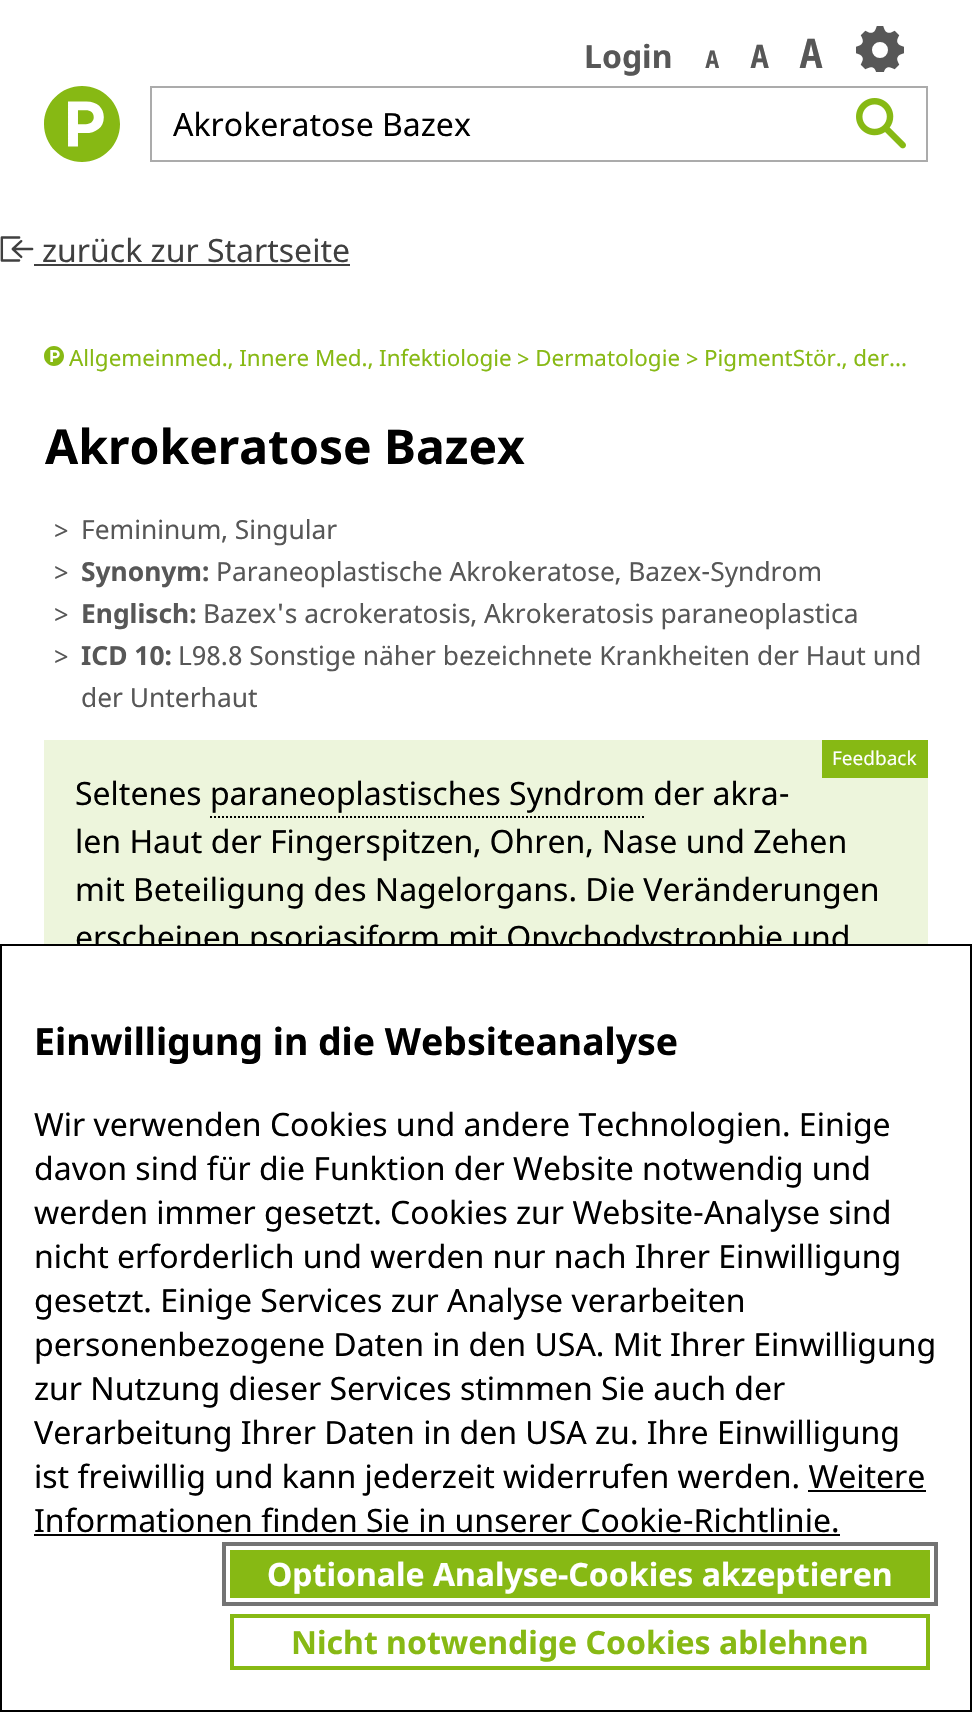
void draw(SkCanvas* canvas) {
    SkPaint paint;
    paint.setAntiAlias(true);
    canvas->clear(0xFFFFFFFF);
    SkFont font1(fontMgr->matchFamilyStyle("Noto Sans", SkFontStyle::Bold()), 32);
    font1.setSubpixel(true);
    paint.setColor(0xFF575757);
    canvas->drawString("Login", 584, 68, font1, paint);
    SkFont font2(fontMgr->matchFamilyStyle("DejaVu Sans Mono", SkFontStyle::Bold()), 24);
    font2.setSubpixel(true);
    canvas->drawString("A", 705, 68, font2, paint);
    SkFont font3(fontMgr->matchFamilyStyle("DejaVu Sans Mono", SkFontStyle::Bold()), 32);
    font3.setSubpixel(true);
    canvas->drawString("A", 750, 68, font3, paint);
    SkFont font4(fontMgr->matchFamilyStyle("DejaVu Sans Mono", SkFontStyle::Bold()), 40);
    font4.setSubpixel(true);
    canvas->drawString("A", 799, 68, font4, paint);
    canvas->drawImageRect(SkImages::DeferredFromEncodedData(SkData::MakeFromFileName("img1.png")), SkRect::MakeXYWH(856, 26, 48, 46), SkSamplingOptions());
    canvas->drawImageRect(SkImages::DeferredFromEncodedData(SkData::MakeFromFileName("img2.png")), SkRect::MakeXYWH(44, 86, 76, 76), SkSamplingOptions());
    canvas->drawImageRect(SkImages::DeferredFromEncodedData(SkData::MakeFromFileName("img3.png")), SkRect::MakeXYWH(856, 98, 50, 51), SkSamplingOptions());
    paint.setStyle(SkPaint::kStroke_Style);
    paint.setStrokeWidth(2);
    paint.setColor(0xFFABABAB);
    canvas->drawRect(SkRect::MakeXYWH(151, 87, 776, 74), paint);
    SkFont font5(fontMgr->matchFamilyStyle("Noto Sans", SkFontStyle::Normal()), 32);
    font5.setSubpixel(true);
    paint.setStyle(SkPaint::kFill_Style);
    paint.setColor(0xFF000000);
    canvas->drawString("Akrokeratose Bazex", 173, 136, font5, paint);
    canvas->drawImageRect(SkImages::DeferredFromEncodedData(SkData::MakeFromFileName("img4.png")), SkRect::MakeXYWH(0, 236, 34, 26), SkSamplingOptions());
    paint.setColor(0xFF404040);
    canvas->drawString("zurück zur Startseite", 42, 262, font5, paint);
    canvas->drawRect(SkRect::MakeXYWH(34, 264, 316, 2), paint);
    canvas->drawImageRect(SkImages::DeferredFromEncodedData(SkData::MakeFromFileName("img5.png")), SkRect::MakeXYWH(44, 346, 20, 20), SkSamplingOptions());
    SkFont font6(fontMgr->matchFamilyStyle("Noto Sans", SkFontStyle::Normal()), 22.4f);
    font6.setSubpixel(true);
    paint.setColor(0xFF87B914);
    canvas->drawString("Allgemeinmed., Innere Med., Infektiologie", 69, 366, font6, paint);
    canvas->drawString("> Dermatologie > PigmentStör., der...", 517, 366, font6, paint);
    SkFont font7(fontMgr->matchFamilyStyle("Noto Sans", SkFontStyle::Bold()), 48);
    font7.setSubpixel(true);
    paint.setColor(0xFF000000);
    canvas->drawString("Akrokeratose Bazex", 45, 464, font7, paint);
    SkFont font8(fontMgr->matchFamilyStyle("Noto Sans", SkFontStyle::Normal()), 26.35f);
    font8.setSubpixel(true);
    paint.setColor(0xFF575757);
    canvas->drawString(">", 54, 539, font8, paint);
    canvas->drawString("Femininum, Singular", 81, 539, font8, paint);
    canvas->drawString(">", 54, 581, font8, paint);
    SkFont font9(fontMgr->matchFamilyStyle("Noto Sans", SkFontStyle::Bold()), 26.35f);
    font9.setSubpixel(true);
    canvas->drawString("Synonym:", 81, 581, font9, paint);
    canvas->drawString("Paraneoplastische Akrokeratose, Bazex-Syndrom", 216, 581, font8, paint);
    canvas->drawString(">", 54, 623, font8, paint);
    canvas->drawString("Englisch:", 81, 623, font9, paint);
    canvas->drawString("Bazex's acrokeratosis, Akrokeratosis paraneoplastica", 203, 623, font8, paint);
    canvas->drawString(">", 54, 665, font8, paint);
    canvas->drawString("ICD 10:", 81, 665, font9, paint);
    canvas->drawString("L98.8 Sonstige näher bezeichnete Krankheiten der Haut und", 178, 665, font8, paint);
    canvas->drawString("der Unterhaut", 81, 707, font8, paint);
    paint.setColor(0xFFEDF5DC);
    canvas->drawRect(SkRect::MakeXYWH(44, 740, 884, 204), paint);
    paint.setColor(0xFF87B914);
    canvas->drawRect(SkRect::MakeXYWH(822, 740, 106, 38), paint);
    SkFont font10(fontMgr->matchFamilyStyle("Noto Sans", SkFontStyle::Normal()), 19);
    font10.setSubpixel(true);
    paint.setColor(0xFFFFFFFF);
    canvas->drawString("Feedback", 832, 765, font10, paint);
    paint.setColor(0xFF000000);
    canvas->drawString("Seltenes paraneoplastisches Syndrom der akra-", 75, 805, font5, paint);
    paint.setStyle(SkPaint::kStroke_Style);
    paint.setPathEffect(SkDashPathEffect::Make({{2, 2}}, 0));
    canvas->drawPath(SkPathBuilder().moveTo(210, 817).lineTo(644, 817).detach(), paint);
    paint.setPathEffect(nullptr);
    paint.setStyle(SkPaint::kFill_Style);
    canvas->drawString("len Haut der Fingerspitzen, Ohren, Nase und Zehen", 75, 853, font5, paint);
    canvas->drawString("mit Beteiligung des Nagelorgans. Die Veränderungen", 75, 901, font5, paint);
    canvas->drawString("erscheinen psoriasiform mit Onychodystrophie und", 75, 949, font5, paint);
    paint.setColor(0xFFFFFFFF);
    canvas->drawRect(SkRect::MakeXYWH(78, 946, 770, 11), paint);
    paint.setStyle(SkPaint::kStroke_Style);
    paint.setColor(0xFF000000);
    canvas->drawRect(SkRect::MakeXYWH(1, 945, 970, 766), paint);
    SkFont font11(fontMgr->matchFamilyStyle("Noto Sans", SkFontStyle::Bold()), 37.4f);
    font11.setSubpixel(true);
    paint.setStyle(SkPaint::kFill_Style);
    canvas->drawString("Einwilligung in die Websiteanalyse", 34, 1055, font11, paint);
    canvas->drawString("Wir verwenden Cookies und andere Technologien. Einige", 34, 1136, font5, paint);
    canvas->drawString("davon sind für die Funktion der Website notwendig und", 34, 1180, font5, paint);
    canvas->drawString("werden immer gesetzt. Cookies zur Website-Analyse sind", 34, 1224, font5, paint);
    canvas->drawString("nicht erforderlich und werden nur nach Ihrer Einwilligung", 34, 1268, font5, paint);
    canvas->drawString("gesetzt. Einige Services zur Analyse verarbeiten", 34, 1312, font5, paint);
    canvas->drawString("personenbezogene Daten in den USA. Mit Ihrer Einwilligung", 34, 1356, font5, paint);
    canvas->drawString("zur Nutzung dieser Services stimmen Sie auch der", 34, 1400, font5, paint);
    canvas->drawString("Verarbeitung Ihrer Daten in den USA zu. Ihre Einwilligung", 34, 1444, font5, paint);
    canvas->drawString("ist freiwillig und kann jederzeit widerrufen werden. Weitere", 34, 1488, font5, paint);
    canvas->drawString("Informationen finden Sie in unserer Cookie-Richtlinie.", 34, 1532, font5, paint);
    canvas->drawRect(SkRect::MakeXYWH(808, 1490, 118, 2), paint);
    canvas->drawRect(SkRect::MakeXYWH(34, 1534, 806, 2), paint);
    paint.setStyle(SkPaint::kStroke_Style);
    paint.setStrokeWidth(4);
    paint.setColor(0xFF737373);
    canvas->drawRect(SkRect::MakeXYWH(224, 1544, 712, 60), paint);
    paint.setStyle(SkPaint::kFill_Style);
    paint.setColor(0xFF87B914);
    canvas->drawRect(SkRect::MakeXYWH(230, 1550, 700, 48), paint);
    paint.setColor(0xFFFFFFFF);
    canvas->drawString("Optionale Analyse-Cookies akzeptieren", 267, 1586, font1, paint);
    paint.setStyle(SkPaint::kStroke_Style);
    paint.setColor(0xFF87B914);
    canvas->drawRect(SkRect::MakeXYWH(232, 1616, 696, 52), paint);
    paint.setStyle(SkPaint::kFill_Style);
    canvas->drawString("Nicht notwendige Cookies ablehnen", 291, 1654, font1, paint);
}
